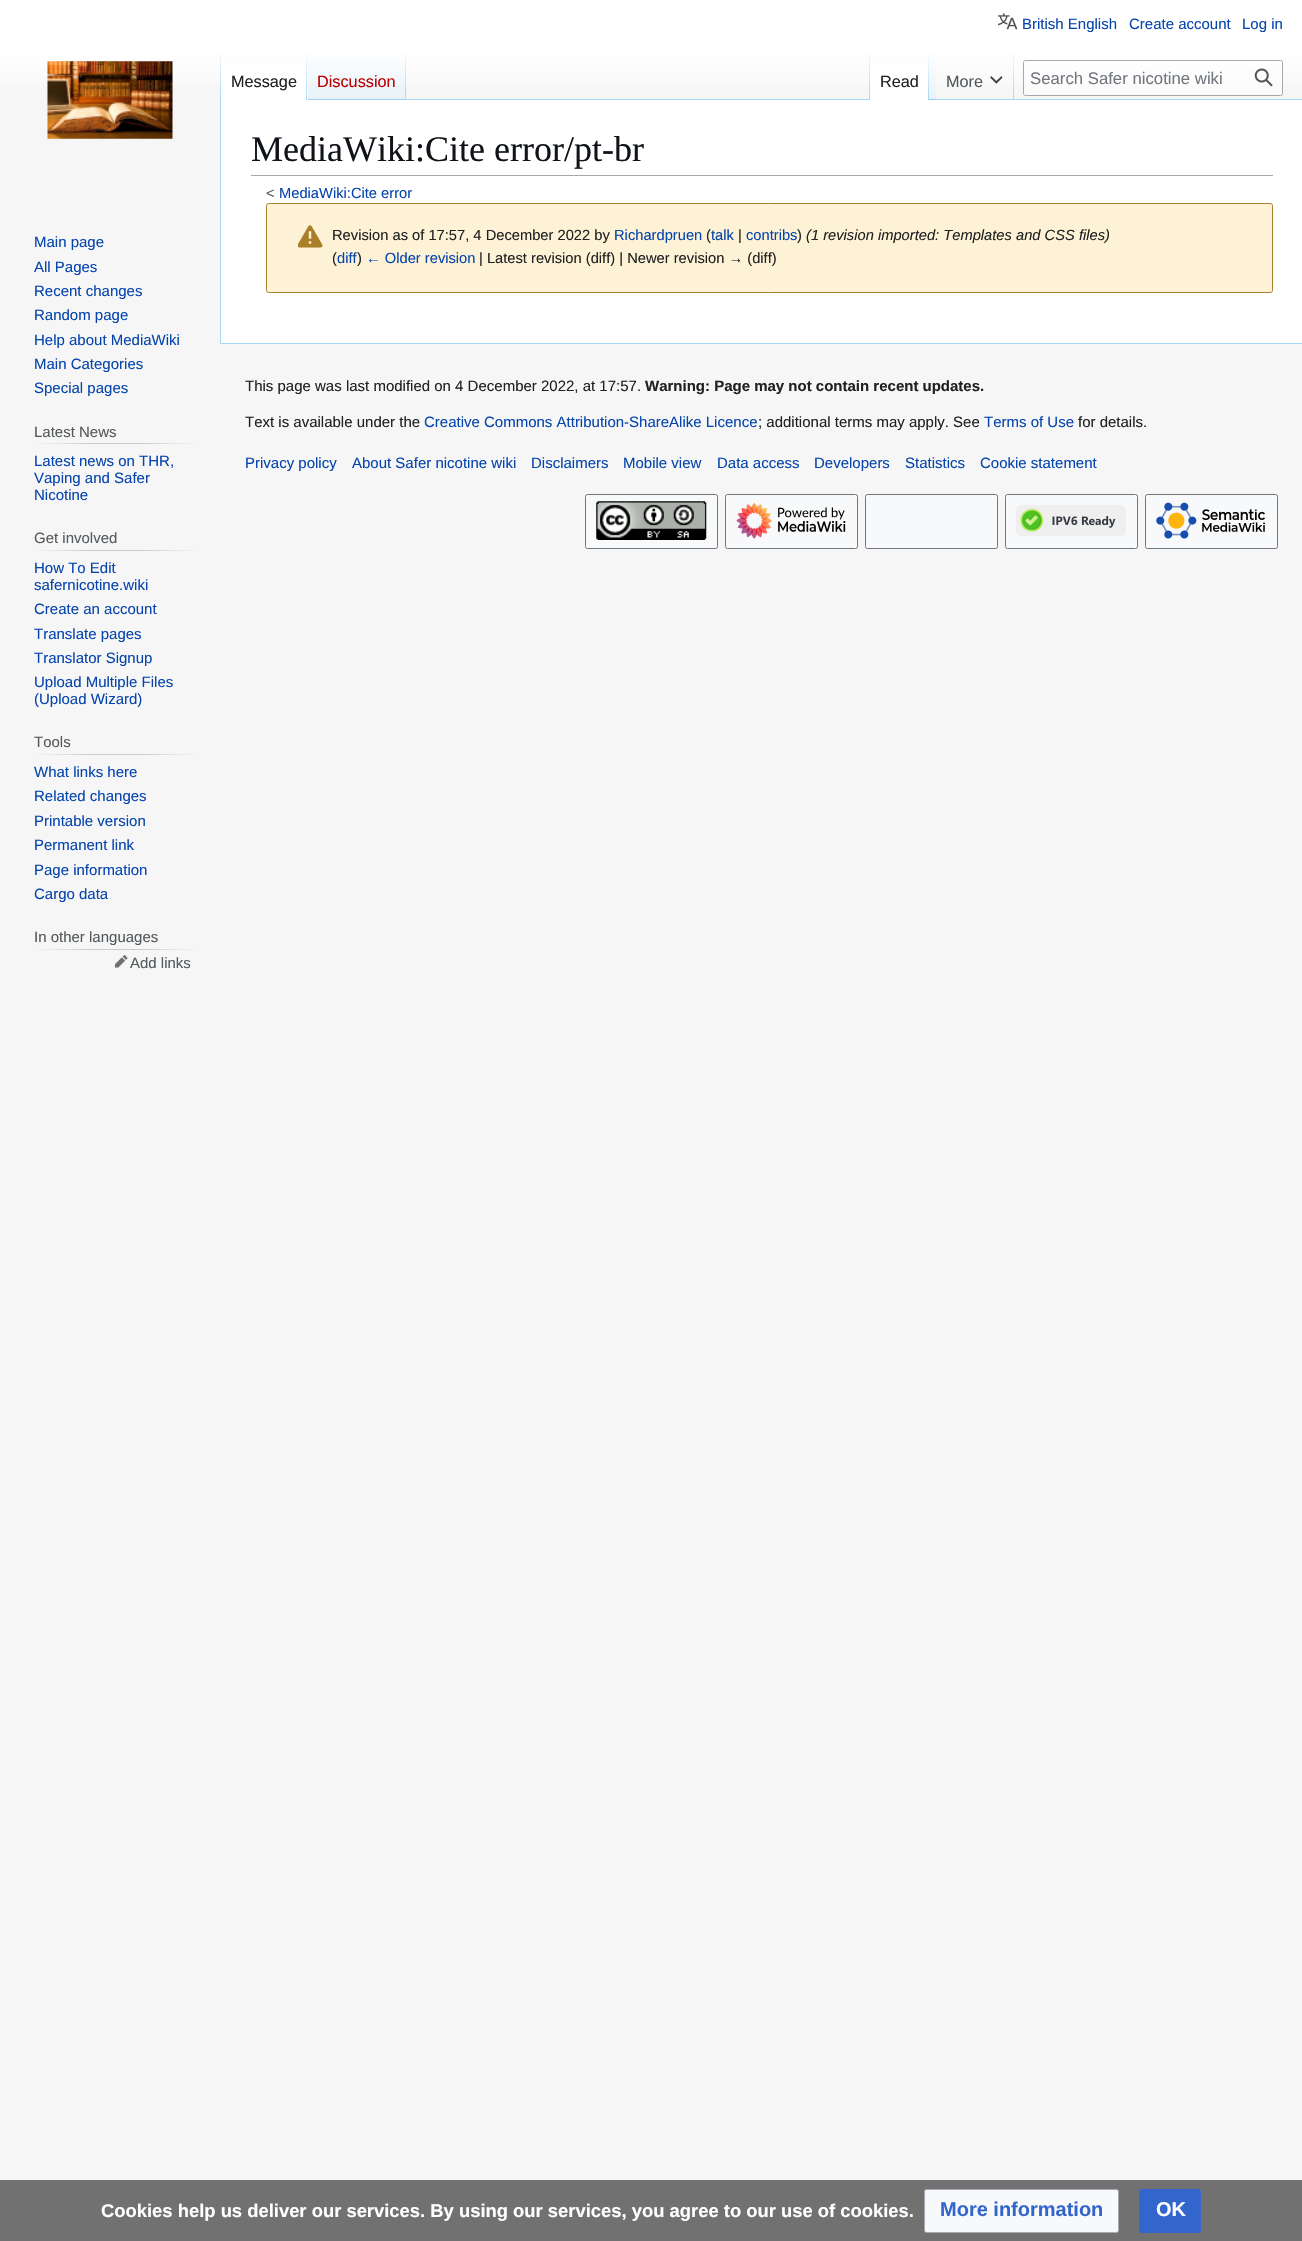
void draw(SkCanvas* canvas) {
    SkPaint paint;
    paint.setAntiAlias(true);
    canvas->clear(0xFFF6F6F6);
    {
        const SkColor colors[] = {0xFFFFFFFF, 0xFFF6F6F6};
        const float stops[] = {0.5f, 1};
        const SkPoint ends[] = {{651, 0}, {651, 100}};
        paint.setShader(SkGradientShader::MakeLinear(ends, colors, stops, 2, SkTileMode::kClamp));
        paint.setAlpha(255);
    }
    canvas->drawRect(SkRect::MakeXYWH(0, 0, 1302, 86), paint);
    canvas->drawImageRect(SkImages::DeferredFromEncodedData(SkData::MakeFromFileName("img1.png")), SkRect::MakeXYWH(998, 13, 20, 17), SkSamplingOptions());
    SkFont font1(fontMgr->matchFamilyStyle("Liberation Sans", SkFontStyle::Normal()), 15);
    font1.setSubpixel(true);
    paint.setShader(nullptr);
    paint.setColor(0xFF0645AD);
    canvas->drawString("British English", 1022, 29, font1, paint);
    canvas->drawString("Create account", 1129, 29, font1, paint);
    canvas->drawString("Log in", 1242, 29, font1, paint);
    paint.setColor(0xFFA7D7F9);
    canvas->drawRect(SkRect::MakeXYWH(220, 343, 1082, 1), paint);
    canvas->drawRect(SkRect::MakeXYWH(220, 99, 1, 245), paint);
    {
        const SkColor colors[] = {0x00A7D7F9, 0xFFA7D7F9};
        const float stops[] = {0, 1};
        const SkPoint ends[] = {{221, 50}, {221, 100}};
        paint.setShader(SkGradientShader::MakeLinear(ends, colors, stops, 2, SkTileMode::kClamp));
        paint.setAlpha(255);
    }
    canvas->drawRect(SkRect::MakeXYWH(220, 50, 1, 50), paint);
    paint.setShader(nullptr);
    paint.setColor(0xFFFFFFFF);
    canvas->drawRect(SkRect::MakeXYWH(221, 64, 87, 36), paint);
    {
        const SkColor colors[] = {0xFFFFFFFF, 0xFFA7D7F9};
        const float stops[] = {0, 1};
        const SkPoint ends[] = {{307, 50}, {307, 100}};
        paint.setShader(SkGradientShader::MakeLinear(ends, colors, stops, 2, SkTileMode::kClamp));
        paint.setAlpha(255);
    }
    canvas->drawRect(SkRect::MakeXYWH(306, 50, 1, 50), paint);
    SkFont font2(fontMgr->matchFamilyStyle("Liberation Sans", SkFontStyle::Normal()), 16.25f);
    font2.setSubpixel(true);
    paint.setShader(nullptr);
    paint.setColor(0xFF202122);
    canvas->drawString("Message", 231, 87, font2, paint);
    {
        const SkColor colors[] = {0xFF77C1F6, 0xFFE8F2F8, 0xFFFFFFFF};
        const float stops[] = {0, 0.03f, 1};
        const SkPoint ends[] = {{357, 100}, {357, 50}};
        paint.setShader(SkGradientShader::MakeLinear(ends, colors, stops, 3, SkTileMode::kClamp));
        paint.setAlpha(255);
    }
    canvas->drawRect(SkRect::MakeXYWH(308, 57, 98, 43), paint);
    {
        const SkColor colors[] = {0x00A7D7F9, 0xFFA7D7F9};
        const float stops[] = {0, 1};
        const SkPoint ends[] = {{406, 50}, {406, 100}};
        paint.setShader(SkGradientShader::MakeLinear(ends, colors, stops, 2, SkTileMode::kClamp));
        paint.setAlpha(255);
    }
    canvas->drawRect(SkRect::MakeXYWH(405, 50, 1, 50), paint);
    paint.setShader(nullptr);
    paint.setColor(0xFFBA0000);
    canvas->drawString("Discussion", 317, 87, font2, paint);
    paint.setColor(0xFFA7D7F9);
    canvas->drawRect(SkRect::MakeXYWH(406, 99, 896, 1), paint);
    {
        const SkColor colors[] = {0x00A7D7F9, 0xFFA7D7F9};
        const float stops[] = {0, 1};
        const SkPoint ends[] = {{869, 50}, {869, 100}};
        paint.setShader(SkGradientShader::MakeLinear(ends, colors, stops, 2, SkTileMode::kClamp));
        paint.setAlpha(255);
    }
    canvas->drawRect(SkRect::MakeXYWH(869, 50, 1, 50), paint);
    paint.setShader(nullptr);
    paint.setColor(0xFFFFFFFF);
    canvas->drawRect(SkRect::MakeXYWH(870, 64, 58, 36), paint);
    {
        const SkColor colors[] = {0xFFFFFFFF, 0xFFA7D7F9};
        const float stops[] = {0, 1};
        const SkPoint ends[] = {{928, 50}, {928, 100}};
        paint.setShader(SkGradientShader::MakeLinear(ends, colors, stops, 2, SkTileMode::kClamp));
        paint.setAlpha(255);
    }
    canvas->drawRect(SkRect::MakeXYWH(928, 50, 1, 50), paint);
    paint.setShader(nullptr);
    paint.setColor(0xFF202122);
    canvas->drawString("Read", 880, 87, font2, paint);
    {
        const SkColor colors[] = {0xFF77C1F6, 0xFFE8F2F8, 0xFFFFFFFF};
        const float stops[] = {0, 0.03f, 1};
        const SkPoint ends[] = {{933, 100}, {933, 50}};
        paint.setShader(SkGradientShader::MakeLinear(ends, colors, stops, 3, SkTileMode::kClamp));
        paint.setAlpha(255);
    }
    canvas->drawRect(SkRect::MakeXYWH(929, 50, 7, 50), paint);
    {
        const SkColor colors[] = {0x00A7D7F9, 0xFFA7D7F9};
        const float stops[] = {0, 1};
        const SkPoint ends[] = {{1013, 50}, {1013, 100}};
        paint.setShader(SkGradientShader::MakeLinear(ends, colors, stops, 2, SkTileMode::kClamp));
        paint.setAlpha(255);
    }
    canvas->drawRect(SkRect::MakeXYWH(1013, 50, 1, 50), paint);
    paint.setShader(nullptr);
    paint.setColor(0xFF54595D);
    canvas->drawString("More", 946, 87, font2, paint);
    canvas->drawImageRect(SkImages::DeferredFromEncodedData(SkData::MakeFromFileName("img2.png")), SkRect::MakeXYWH(990, 76, 13, 8), SkSamplingOptions());
    paint.setColor(0x80FFFFFF);
    canvas->drawRoundRect(SkRect::MakeXYWH(1023.5f, 60.5f, 259, 35), 2, 2, paint);
    paint.setStyle(SkPaint::kStroke_Style);
    paint.setStrokeWidth(1);
    paint.setColor(0xFFA2A9B1);
    canvas->drawRoundRect(SkRect::MakeXYWH(1023.5f, 60.5f, 259, 35), 2, 2, paint);
    SkFont font3(fontMgr->matchFamilyStyle("Liberation Sans", SkFontStyle::Normal()), 16.75f);
    font3.setSubpixel(true);
    paint.setStyle(SkPaint::kFill_Style);
    paint.setColor(0xFF72777D);
    canvas->drawString("Search Safer nicotine wiki", 1030, 84, font3, paint);
    canvas->drawImageRect(SkImages::DeferredFromEncodedData(SkData::MakeFromFileName("img3.png")), SkRect::MakeXYWH(1254, 68, 19, 19), SkSamplingOptions());
    canvas->drawImageRect(SkImages::DeferredFromEncodedData(SkData::MakeFromFileName("img4.png")), SkRect::MakeXYWH(47, 61, 126, 78), SkSamplingOptions());
    paint.setColor(0xFF0645AD);
    canvas->drawString("Main page", 34, 247, font1, paint);
    canvas->drawString("All Pages", 34, 272, font1, paint);
    canvas->drawString("Recent changes", 34, 296, font1, paint);
    canvas->drawString("Random page", 34, 320, font1, paint);
    canvas->drawString("Help about MediaWiki", 34, 345, font1, paint);
    canvas->drawString("Main Categories", 34, 369, font1, paint);
    canvas->drawString("Special pages", 34, 393, font1, paint);
    {
        const SkColor colors[] = {0xFFF6F6F6, 0xFFC8CCD1, 0xFFC8CCD1, 0xFFF6F6F6};
        const float stops[] = {0, 0.33f, 0.66f, 1};
        const SkPoint ends[] = {{34, 443}, {198, 443}};
        paint.setShader(SkGradientShader::MakeLinear(ends, colors, stops, 4, SkTileMode::kClamp));
        paint.setAlpha(255);
    }
    canvas->drawRect(SkRect::MakeXYWH(34, 443, 164, 1), paint);
    paint.setShader(nullptr);
    paint.setColor(0xFF54595D);
    canvas->drawString("Latest News", 34, 437, font1, paint);
    paint.setColor(0xFF0645AD);
    canvas->drawString("Latest news on THR,", 34, 466, font1, paint);
    canvas->drawString("Vaping and Safer", 34, 483, font1, paint);
    canvas->drawString("Nicotine", 34, 500, font1, paint);
    {
        const SkColor colors[] = {0xFFF6F6F6, 0xFFC8CCD1, 0xFFC8CCD1, 0xFFF6F6F6};
        const float stops[] = {0, 0.33f, 0.66f, 1};
        const SkPoint ends[] = {{34, 551}, {198, 551}};
        paint.setShader(SkGradientShader::MakeLinear(ends, colors, stops, 4, SkTileMode::kClamp));
        paint.setAlpha(255);
    }
    canvas->drawRect(SkRect::MakeXYWH(34, 550, 164, 1), paint);
    paint.setShader(nullptr);
    paint.setColor(0xFF54595D);
    canvas->drawString("Get involved", 34, 543, font1, paint);
    paint.setColor(0xFF0645AD);
    canvas->drawString("How To Edit", 34, 573, font1, paint);
    canvas->drawString("safernicotine.wiki", 34, 590, font1, paint);
    canvas->drawString("Create an account", 34, 614, font1, paint);
    canvas->drawString("Translate pages", 34, 639, font1, paint);
    canvas->drawString("Translator Signup", 34, 663, font1, paint);
    canvas->drawString("Upload Multiple Files", 34, 687, font1, paint);
    canvas->drawString("(Upload Wizard)", 34, 704, font1, paint);
    {
        const SkColor colors[] = {0xFFF6F6F6, 0xFFC8CCD1, 0xFFC8CCD1, 0xFFF6F6F6};
        const float stops[] = {0, 0.33f, 0.66f, 1};
        const SkPoint ends[] = {{34, 754}, {198, 754}};
        paint.setShader(SkGradientShader::MakeLinear(ends, colors, stops, 4, SkTileMode::kClamp));
        paint.setAlpha(255);
    }
    canvas->drawRect(SkRect::MakeXYWH(34, 754, 164, 1), paint);
    paint.setShader(nullptr);
    paint.setColor(0xFF54595D);
    canvas->drawString("Tools", 34, 747, font1, paint);
    paint.setColor(0xFF0645AD);
    canvas->drawString("What links here", 34, 777, font1, paint);
    canvas->drawString("Related changes", 34, 801, font1, paint);
    canvas->drawString("Printable version", 34, 826, font1, paint);
    canvas->drawString("Permanent link", 34, 850, font1, paint);
    canvas->drawString("Page information", 34, 875, font1, paint);
    canvas->drawString("Cargo data", 34, 899, font1, paint);
    {
        const SkColor colors[] = {0xFFF6F6F6, 0xFFC8CCD1, 0xFFC8CCD1, 0xFFF6F6F6};
        const float stops[] = {0, 0.33f, 0.66f, 1};
        const SkPoint ends[] = {{34, 949}, {198, 949}};
        paint.setShader(SkGradientShader::MakeLinear(ends, colors, stops, 4, SkTileMode::kClamp));
        paint.setAlpha(255);
    }
    canvas->drawRect(SkRect::MakeXYWH(34, 949, 164, 1), paint);
    paint.setShader(nullptr);
    paint.setColor(0xFF54595D);
    canvas->drawString("In other languages", 34, 942, font1, paint);
    canvas->drawImageRect(SkImages::DeferredFromEncodedData(SkData::MakeFromFileName("img5.png")), SkRect::MakeXYWH(115, 955, 13, 13), SkSamplingOptions());
    canvas->drawString("Add links", 130, 968, font1, paint);
    paint.setColor(0xFFFFFFFF);
    canvas->drawRect(SkRect::MakeXYWH(221, 100, 1081, 243), paint);
    paint.setColor(0xFFA2A9B1);
    canvas->drawRect(SkRect::MakeXYWH(251, 175, 1022, 1), paint);
    SkFont font4(fontMgr->matchFamilyStyle("Liberation Serif", SkFontStyle::Normal()), 36);
    font4.setSubpixel(true);
    paint.setColor(0xFF101418);
    canvas->drawString("MediaWiki:Cite error/pt-br", 251, 161, font4, paint);
    SkFont font5(fontMgr->matchFamilyStyle("Liberation Sans", SkFontStyle::Normal()), 14.7f);
    font5.setSubpixel(true);
    paint.setColor(0xFF54595D);
    canvas->drawString("<", 266, 198, font5, paint);
    paint.setColor(0xFF0645AD);
    canvas->drawString("MediaWiki:Cite error", 279, 198, font5, paint);
    paint.setColor(0xFFFDF2D5);
    canvas->drawRoundRect(SkRect::MakeXYWH(266.5f, 203.5f, 1006, 89), 2, 2, paint);
    paint.setStyle(SkPaint::kStroke_Style);
    paint.setColor(0xFFAB7F2A);
    canvas->drawRoundRect(SkRect::MakeXYWH(266.5f, 203.5f, 1006, 89), 2, 2, paint);
    canvas->drawImageRect(SkImages::DeferredFromEncodedData(SkData::MakeFromFileName("img6.png")), SkRect::MakeXYWH(298, 225, 25, 23), SkSamplingOptions());
    paint.setStyle(SkPaint::kFill_Style);
    paint.setColor(0xFF202122);
    canvas->drawString("Revision as of 17:57, 4 December 2022 by", 332, 240, font5, paint);
    paint.setColor(0xFF0645AD);
    canvas->drawString("Richardpruen", 614, 240, font5, paint);
    paint.setColor(0xFF202122);
    canvas->drawString("(", 706, 240, font5, paint);
    paint.setColor(0xFF0645AD);
    canvas->drawString("talk", 711, 240, font5, paint);
    paint.setColor(0xFF202122);
    canvas->drawString("|", 738, 240, font5, paint);
    paint.setColor(0xFF0645AD);
    canvas->drawString("contribs", 746, 240, font5, paint);
    paint.setColor(0xFF202122);
    canvas->drawString(")", 797, 240, font5, paint);
    SkFont font6(fontMgr->matchFamilyStyle("Liberation Sans", SkFontStyle::Italic()), 14.7f);
    font6.setSubpixel(true);
    canvas->drawString("(1 revision imported: Templates and CSS files)", 806, 240, font6, paint);
    canvas->drawString("(", 332, 263, font5, paint);
    paint.setColor(0xFF0645AD);
    canvas->drawString("diff", 337, 263, font5, paint);
    paint.setColor(0xFF202122);
    canvas->drawString(")", 357, 263, font5, paint);
    paint.setColor(0xFF0645AD);
    canvas->drawString("← Older revision", 366, 263, font5, paint);
    paint.setColor(0xFF202122);
    canvas->drawString("| Latest revision (diff) | Newer revision → (diff)", 479, 263, font5, paint);
    canvas->drawString("This page was last modified on 4 December 2022, at 17:57.", 245, 391, font1, paint);
    SkFont font7(fontMgr->matchFamilyStyle("Liberation Sans", SkFontStyle::Bold()), 15);
    font7.setSubpixel(true);
    canvas->drawString("Warning: Page may not contain recent updates.", 645, 391, font7, paint);
    canvas->drawString("Text is available under the", 245, 427, font1, paint);
    paint.setColor(0xFF0645AD);
    canvas->drawString("Creative Commons Attribution-ShareAlike Licence", 424, 427, font1, paint);
    paint.setColor(0xFF202122);
    canvas->drawString("; additional terms may apply. See", 758, 427, font1, paint);
    paint.setColor(0xFF0645AD);
    canvas->drawString("Terms of Use", 984, 427, font1, paint);
    paint.setColor(0xFF202122);
    canvas->drawString("for details.", 1078, 427, font1, paint);
    paint.setColor(0xFF0645AD);
    canvas->drawString("Privacy policy", 245, 468, font1, paint);
    canvas->drawString("About Safer nicotine wiki", 352, 468, font1, paint);
    canvas->drawString("Disclaimers", 531, 468, font1, paint);
    canvas->drawString("Mobile view", 623, 468, font1, paint);
    canvas->drawString("Data access", 717, 468, font1, paint);
    canvas->drawString("Developers", 814, 468, font1, paint);
    canvas->drawString("Statistics", 905, 468, font1, paint);
    canvas->drawString("Cookie statement", 980, 468, font1, paint);
    paint.setColor(0xFFF8F9FA);
    canvas->drawRoundRect(SkRect::MakeXYWH(585.5f, 494.5f, 132, 54), 2, 2, paint);
    paint.setStyle(SkPaint::kStroke_Style);
    paint.setColor(0xFF72777D);
    canvas->drawRoundRect(SkRect::MakeXYWH(585.5f, 494.5f, 132, 54), 2, 2, paint);
    canvas->drawImageRect(SkImages::DeferredFromEncodedData(SkData::MakeFromFileName("img7.png")), SkRect::MakeXYWH(596, 501, 111, 39), SkSamplingOptions());
    paint.setStyle(SkPaint::kFill_Style);
    paint.setColor(0xFFF8F9FA);
    canvas->drawRoundRect(SkRect::MakeXYWH(725.5f, 494.5f, 132, 54), 2, 2, paint);
    paint.setStyle(SkPaint::kStroke_Style);
    paint.setColor(0xFF72777D);
    canvas->drawRoundRect(SkRect::MakeXYWH(725.5f, 494.5f, 132, 54), 2, 2, paint);
    canvas->drawImageRect(SkImages::DeferredFromEncodedData(SkData::MakeFromFileName("img8.png")), SkRect::MakeXYWH(736, 502, 110, 37), SkSamplingOptions());
    paint.setStyle(SkPaint::kFill_Style);
    paint.setColor(0xFFF8F9FA);
    canvas->drawRoundRect(SkRect::MakeXYWH(865.5f, 494.5f, 132, 54), 2, 2, paint);
    paint.setStyle(SkPaint::kStroke_Style);
    paint.setColor(0xFF72777D);
    canvas->drawRoundRect(SkRect::MakeXYWH(865.5f, 494.5f, 132, 54), 2, 2, paint);
    paint.setStyle(SkPaint::kFill_Style);
    paint.setColor(0xFFF8F9FA);
    canvas->drawRoundRect(SkRect::MakeXYWH(1005.5f, 494.5f, 132, 54), 2, 2, paint);
    paint.setStyle(SkPaint::kStroke_Style);
    paint.setColor(0xFF72777D);
    canvas->drawRoundRect(SkRect::MakeXYWH(1005.5f, 494.5f, 132, 54), 2, 2, paint);
    canvas->drawImageRect(SkImages::DeferredFromEncodedData(SkData::MakeFromFileName("img9.png")), SkRect::MakeXYWH(1016, 505, 110, 31), SkSamplingOptions());
    paint.setStyle(SkPaint::kFill_Style);
    paint.setColor(0xFFF8F9FA);
    canvas->drawRoundRect(SkRect::MakeXYWH(1145.5f, 494.5f, 132, 54), 2, 2, paint);
    paint.setStyle(SkPaint::kStroke_Style);
    paint.setColor(0xFF72777D);
    canvas->drawRoundRect(SkRect::MakeXYWH(1145.5f, 494.5f, 132, 54), 2, 2, paint);
    canvas->drawImageRect(SkImages::DeferredFromEncodedData(SkData::MakeFromFileName("img10.png")), SkRect::MakeXYWH(1156, 502, 109, 37), SkSamplingOptions());
    paint.setStyle(SkPaint::kFill_Style);
    paint.setColor(0xFF717171);
    canvas->drawRect(SkRect::MakeXYWH(0, 2180, 1302, 61), paint);
    SkFont font8(fontMgr->matchFamilyStyle("Liberation Sans", SkFontStyle::Bold()), 18.4f);
    font8.setSubpixel(true);
    paint.setColor(0xFFFFFFFF);
    canvas->drawString("Cookies help us deliver our services. By using our services, you agree to our use of cookies.", 101, 2217, font8, paint);
    paint.setColor(0xFFF8F9FA);
    canvas->drawRoundRect(SkRect::MakeXYWH(924.5f, 2189.5f, 194, 43), 2, 2, paint);
    paint.setStyle(SkPaint::kStroke_Style);
    paint.setColor(0xFFA2A9B1);
    canvas->drawRoundRect(SkRect::MakeXYWH(924.5f, 2189.5f, 194, 43), 2, 2, paint);
    SkFont font9(fontMgr->matchFamilyStyle("Liberation Sans", SkFontStyle::Bold()), 20);
    font9.setSubpixel(true);
    paint.setStyle(SkPaint::kFill_Style);
    paint.setColor(0xFF3366CC);
    canvas->drawString("More information", 940, 2216, font9, paint);
    canvas->drawRoundRect(SkRect::MakeXYWH(1139.5f, 2189.5f, 61, 43), 2, 2, paint);
    paint.setStyle(SkPaint::kStroke_Style);
    canvas->drawRoundRect(SkRect::MakeXYWH(1139.5f, 2189.5f, 61, 43), 2, 2, paint);
    paint.setStyle(SkPaint::kFill_Style);
    paint.setColor(0xFFFFFFFF);
    canvas->drawString("OK", 1156, 2216, font9, paint);
}
